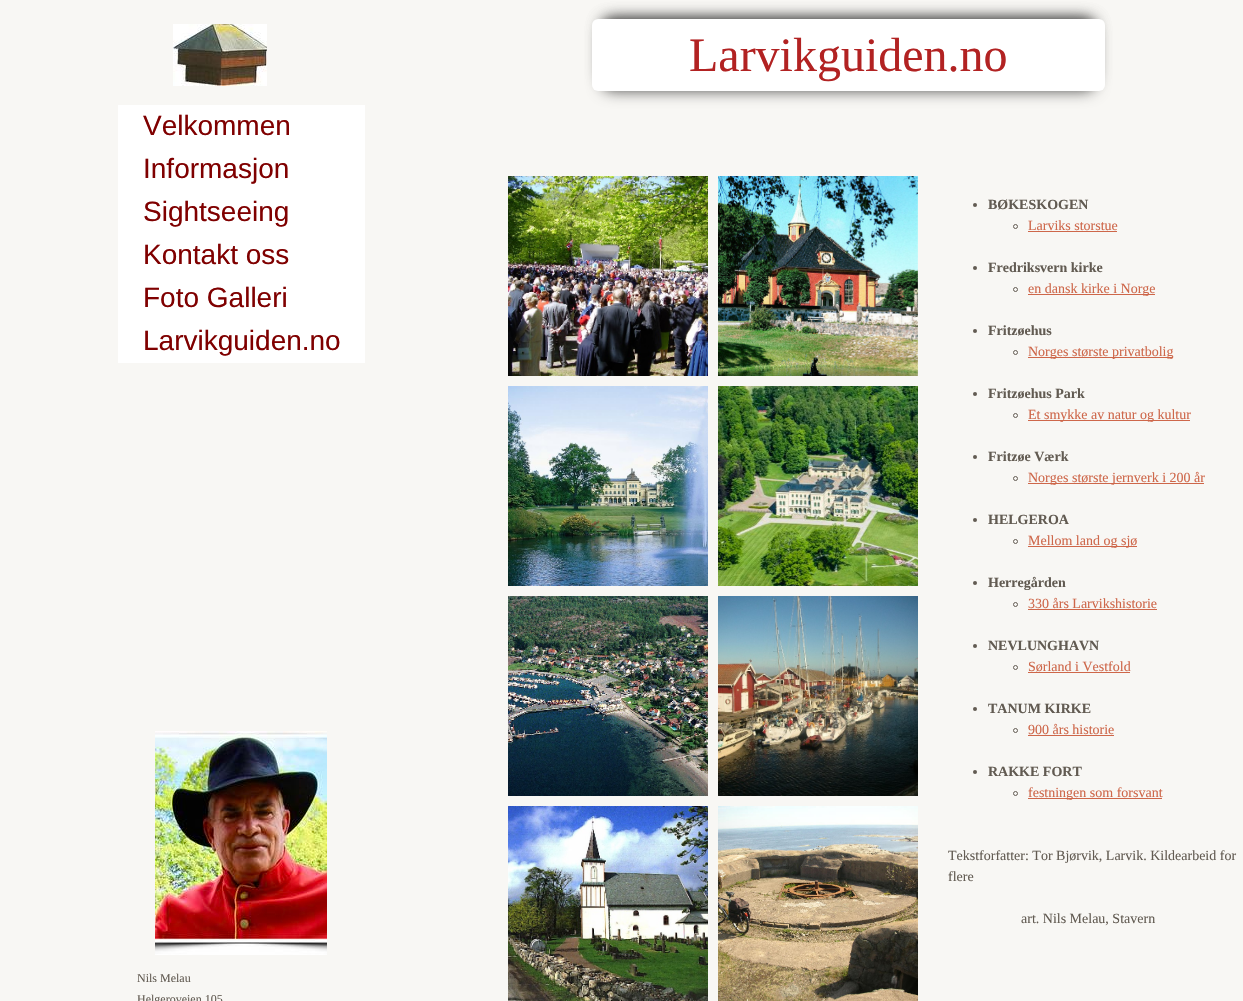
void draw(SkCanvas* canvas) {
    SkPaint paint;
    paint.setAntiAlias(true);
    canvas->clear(0xFFF8F7F4);
    canvas->drawImageRect(SkImages::DeferredFromEncodedData(SkData::MakeFromFileName("img1.png")), SkRect::MakeXYWH(173, 24, 94, 62), SkSamplingOptions());
    paint.setColor(0x99000000);
    paint.setMaskFilter(SkMaskFilter::MakeBlur(kNormal_SkBlurStyle, 7.5f));
    canvas->drawRoundRect(SkRect::MakeXYWH(602, 19, 493, 62), 10, 10, paint);
    paint.setMaskFilter(nullptr);
    paint.setMaskFilter(SkMaskFilter::MakeBlur(kNormal_SkBlurStyle, 7.5f));
    canvas->drawRoundRect(SkRect::MakeXYWH(602, 19, 493, 72), 10, 10, paint);
    paint.setMaskFilter(nullptr);
    paint.setColor(0xFFFFFFFF);
    canvas->drawRoundRect(SkRect::MakeXYWH(592, 19, 513, 72), 6, 6, paint);
    SkFont font1(fontMgr->matchFamilyStyle("Liberation Serif", SkFontStyle::Normal()), 48);
    font1.setSubpixel(true);
    paint.setColor(0xFFB22222);
    canvas->drawString("Larvikguiden.no", 689, 71, font1, paint);
    paint.setColor(0xFFFFFFFF);
    canvas->drawRect(SkRect::MakeXYWH(118, 105, 247, 258), paint);
    SkFont font2(fontMgr->matchFamilyStyle("Liberation Sans", SkFontStyle::Normal()), 28);
    font2.setSubpixel(true);
    paint.setColor(0xFF7F0000);
    canvas->drawString("Velkommen", 143, 135, font2, paint);
    canvas->drawString("Informasjon", 143, 178, font2, paint);
    canvas->drawString("Sightseeing", 143, 221, font2, paint);
    canvas->drawString("Kontakt oss", 143, 264, font2, paint);
    canvas->drawString("Foto Galleri", 143, 307, font2, paint);
    canvas->drawString("Larvikguiden.no", 143, 350, font2, paint);
    canvas->drawImageRect(SkImages::DeferredFromEncodedData(SkData::MakeFromFileName("img2.png")), SkRect::MakeXYWH(508, 176, 200, 200), SkSamplingOptions());
    canvas->drawImageRect(SkImages::DeferredFromEncodedData(SkData::MakeFromFileName("img3.png")), SkRect::MakeXYWH(718, 176, 200, 200), SkSamplingOptions());
    canvas->drawImageRect(SkImages::DeferredFromEncodedData(SkData::MakeFromFileName("img4.png")), SkRect::MakeXYWH(508, 386, 200, 200), SkSamplingOptions());
    canvas->drawImageRect(SkImages::DeferredFromEncodedData(SkData::MakeFromFileName("img5.png")), SkRect::MakeXYWH(718, 386, 200, 200), SkSamplingOptions());
    canvas->drawImageRect(SkImages::DeferredFromEncodedData(SkData::MakeFromFileName("img6.png")), SkRect::MakeXYWH(508, 596, 200, 200), SkSamplingOptions());
    canvas->drawImageRect(SkImages::DeferredFromEncodedData(SkData::MakeFromFileName("img7.png")), SkRect::MakeXYWH(718, 596, 200, 200), SkSamplingOptions());
    canvas->drawImageRect(SkImages::DeferredFromEncodedData(SkData::MakeFromFileName("img8.png")), SkRect::MakeXYWH(508, 806, 200, 195), SkSamplingOptions());
    canvas->drawImageRect(SkImages::DeferredFromEncodedData(SkData::MakeFromFileName("img9.png")), SkRect::MakeXYWH(718, 806, 200, 195), SkSamplingOptions());
    paint.setColor(0xFF625B52);
    canvas->drawCircle(975, 205, 2, paint);
    SkFont font3(fontMgr->matchFamilyStyle("Liberation Serif", SkFontStyle::Bold()), 14);
    font3.setSubpixel(true);
    canvas->drawString("BØKESKOGEN", 988, 209, font3, paint);
    paint.setStyle(SkPaint::kStroke_Style);
    paint.setStrokeWidth(1);
    canvas->drawCircle(1015.5f, 226.5f, 2, paint);
    SkFont font4(fontMgr->matchFamilyStyle("Liberation Serif", SkFontStyle::Normal()), 14);
    font4.setSubpixel(true);
    paint.setStyle(SkPaint::kFill_Style);
    paint.setColor(0xFFCE674A);
    canvas->drawString("Larviks storstue", 1028, 230, font4, paint);
    canvas->drawRect(SkRect::MakeXYWH(1028, 231, 89, 1), paint);
    paint.setColor(0xFF625B52);
    canvas->drawCircle(975, 268, 2, paint);
    canvas->drawString("Fredriksvern kirke", 988, 272, font3, paint);
    paint.setStyle(SkPaint::kStroke_Style);
    canvas->drawCircle(1015.5f, 289.5f, 2, paint);
    paint.setStyle(SkPaint::kFill_Style);
    paint.setColor(0xFFCE674A);
    canvas->drawRect(SkRect::MakeXYWH(1028, 294, 127, 1), paint);
    canvas->drawString("en dansk kirke i Norge", 1028, 293, font4, paint);
    paint.setColor(0xFF625B52);
    canvas->drawCircle(975, 331, 2, paint);
    canvas->drawString("Fritzøehus", 988, 335, font3, paint);
    paint.setStyle(SkPaint::kStroke_Style);
    canvas->drawCircle(1015.5f, 352.5f, 2, paint);
    paint.setStyle(SkPaint::kFill_Style);
    paint.setColor(0xFFCE674A);
    canvas->drawRect(SkRect::MakeXYWH(1028, 357, 145, 1), paint);
    canvas->drawString("Norges største privatbolig", 1028, 356, font4, paint);
    paint.setColor(0xFF625B52);
    canvas->drawCircle(975, 394, 2, paint);
    canvas->drawString("Fritzøehus Park", 988, 398, font3, paint);
    paint.setStyle(SkPaint::kStroke_Style);
    canvas->drawCircle(1015.5f, 415.5f, 2, paint);
    paint.setStyle(SkPaint::kFill_Style);
    paint.setColor(0xFFCE674A);
    canvas->drawRect(SkRect::MakeXYWH(1028, 420, 162, 1), paint);
    canvas->drawString("Et smykke av natur og kultur", 1028, 419, font4, paint);
    paint.setColor(0xFF625B52);
    canvas->drawCircle(975, 457, 2, paint);
    canvas->drawString("Fritzøe Værk", 988, 461, font3, paint);
    paint.setStyle(SkPaint::kStroke_Style);
    canvas->drawCircle(1015.5f, 478.5f, 2, paint);
    paint.setStyle(SkPaint::kFill_Style);
    paint.setColor(0xFFCE674A);
    canvas->drawRect(SkRect::MakeXYWH(1028, 483, 176, 1), paint);
    canvas->drawString("Norges største jernverk i 200 år", 1028, 482, font4, paint);
    paint.setColor(0xFF625B52);
    canvas->drawCircle(975, 520, 2, paint);
    canvas->drawString("HELGEROA", 988, 524, font3, paint);
    paint.setStyle(SkPaint::kStroke_Style);
    canvas->drawCircle(1015.5f, 541.5f, 2, paint);
    paint.setStyle(SkPaint::kFill_Style);
    paint.setColor(0xFFCE674A);
    canvas->drawRect(SkRect::MakeXYWH(1028, 546, 109, 1), paint);
    canvas->drawString("Mellom land og sjø", 1028, 545, font4, paint);
    paint.setColor(0xFF625B52);
    canvas->drawCircle(975, 583, 2, paint);
    canvas->drawString("Herregården", 988, 587, font3, paint);
    paint.setStyle(SkPaint::kStroke_Style);
    canvas->drawCircle(1015.5f, 604.5f, 2, paint);
    paint.setStyle(SkPaint::kFill_Style);
    paint.setColor(0xFFCE674A);
    canvas->drawString("330 års Larvikshistorie", 1028, 608, font4, paint);
    canvas->drawRect(SkRect::MakeXYWH(1028, 609, 129, 1), paint);
    paint.setColor(0xFF625B52);
    canvas->drawCircle(975, 646, 2, paint);
    canvas->drawString("NEVLUNGHAVN", 988, 650, font3, paint);
    paint.setStyle(SkPaint::kStroke_Style);
    canvas->drawCircle(1015.5f, 667.5f, 2, paint);
    paint.setStyle(SkPaint::kFill_Style);
    paint.setColor(0xFFCE674A);
    canvas->drawString("Sørland i Vestfold", 1028, 671, font4, paint);
    canvas->drawRect(SkRect::MakeXYWH(1028, 672, 102, 1), paint);
    paint.setColor(0xFF625B52);
    canvas->drawCircle(975, 709, 2, paint);
    canvas->drawString("TANUM KIRKE", 988, 713, font3, paint);
    paint.setStyle(SkPaint::kStroke_Style);
    canvas->drawCircle(1015.5f, 730.5f, 2, paint);
    paint.setStyle(SkPaint::kFill_Style);
    paint.setColor(0xFFCE674A);
    canvas->drawString("900 års historie", 1028, 734, font4, paint);
    canvas->drawRect(SkRect::MakeXYWH(1028, 735, 86, 1), paint);
    paint.setColor(0xFF625B52);
    canvas->drawCircle(975, 772, 2, paint);
    canvas->drawString("RAKKE FORT", 988, 776, font3, paint);
    paint.setStyle(SkPaint::kStroke_Style);
    canvas->drawCircle(1015.5f, 793.5f, 2, paint);
    paint.setStyle(SkPaint::kFill_Style);
    paint.setColor(0xFFCE674A);
    canvas->drawRect(SkRect::MakeXYWH(1028, 798, 134, 1), paint);
    canvas->drawString("festningen som forsvant", 1028, 797, font4, paint);
    paint.setColor(0xFF625B52);
    canvas->drawString("Tekstforfatter: Tor Bjørvik, Larvik. Kildearbeid for", 948, 860, font4, paint);
    canvas->drawString("flere", 948, 881, font4, paint);
    canvas->drawString("art. Nils Melau, Stavern", 1021, 923, font4, paint);
    canvas->drawImageRect(SkImages::DeferredFromEncodedData(SkData::MakeFromFileName("img10.png")), SkRect::MakeXYWH(155, 731, 172, 224), SkSamplingOptions());
    SkFont font5(fontMgr->matchFamilyStyle("Liberation Serif", SkFontStyle::Normal()), 12);
    font5.setSubpixel(true);
    canvas->drawString("Nils Melau", 137, 982, font5, paint);
    canvas->drawString("Helgeroveien 105", 137, 1003, font5, paint);
}
